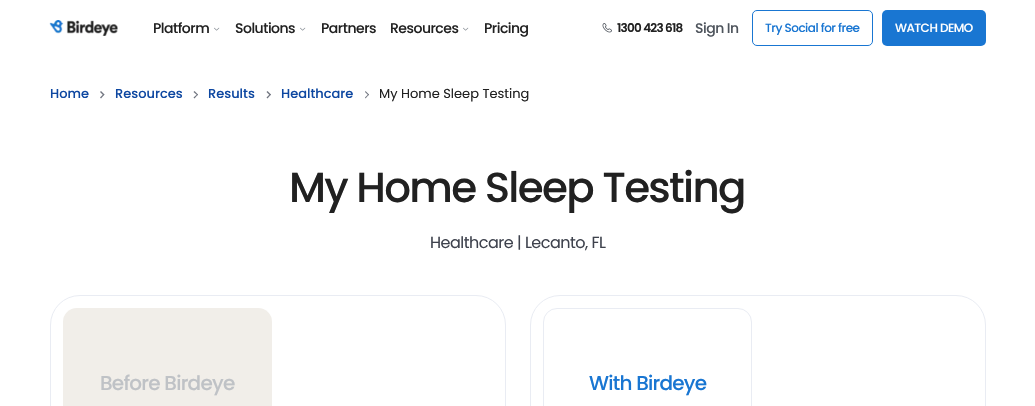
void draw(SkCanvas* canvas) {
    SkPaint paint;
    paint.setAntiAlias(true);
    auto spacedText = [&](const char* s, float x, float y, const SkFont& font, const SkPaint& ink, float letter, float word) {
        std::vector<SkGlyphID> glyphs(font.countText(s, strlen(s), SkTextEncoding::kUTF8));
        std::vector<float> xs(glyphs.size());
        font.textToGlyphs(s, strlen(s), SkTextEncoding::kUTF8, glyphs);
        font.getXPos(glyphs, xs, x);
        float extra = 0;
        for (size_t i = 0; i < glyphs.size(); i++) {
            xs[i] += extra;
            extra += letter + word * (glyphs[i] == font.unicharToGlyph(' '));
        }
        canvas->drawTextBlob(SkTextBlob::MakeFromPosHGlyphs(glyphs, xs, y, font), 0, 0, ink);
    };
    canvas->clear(0xFFFFFFFF);
    canvas->drawImageRect(SkImages::DeferredFromEncodedData(SkData::MakeFromFileName("img1.png")), SkRect::MakeXYWH(49, 20, 69, 16), SkSamplingOptions());
    SkFont font1(fontMgr->matchFamilyStyle("Poppins", SkFontStyle(500, SkFontStyle::kNormal_Width, SkFontStyle::kUpright_Slant)), 14);
    font1.setSubpixel(true);
    paint.setColor(0xFF212121);
    spacedText("Platform", 153, 33, font1, paint, -0.5f, 0);
    canvas->drawImageRect(SkImages::DeferredFromEncodedData(SkData::MakeFromFileName("img2.png")), SkRect::MakeXYWH(214, 27, 6, 4), SkSamplingOptions());
    spacedText("Solutions", 235, 33, font1, paint, -0.5f, 0);
    canvas->drawImageRect(SkImages::DeferredFromEncodedData(SkData::MakeFromFileName("img2.png")), SkRect::MakeXYWH(300, 27, 6, 4), SkSamplingOptions());
    spacedText("Partners", 321, 33, font1, paint, -0.5f, 0);
    spacedText("Resources", 390, 33, font1, paint, -0.5f, 0);
    canvas->drawImageRect(SkImages::DeferredFromEncodedData(SkData::MakeFromFileName("img2.png")), SkRect::MakeXYWH(463, 27, 6, 4), SkSamplingOptions());
    spacedText("Pricing", 484, 33, font1, paint, -0.5f, 0);
    canvas->drawImageRect(SkImages::DeferredFromEncodedData(SkData::MakeFromFileName("img3.png")), SkRect::MakeXYWH(602, 23, 10, 10), SkSamplingOptions());
    SkFont font2(fontMgr->matchFamilyStyle("Poppins", SkFontStyle(600, SkFontStyle::kNormal_Width, SkFontStyle::kUpright_Slant)), 12);
    font2.setSubpixel(true);
    spacedText("1300 423 618", 617, 32, font2, paint, -0.75f, 0);
    paint.setColor(0xFF4E545C);
    spacedText("Sign In", 695, 33, font1, paint, -0.5f, 0);
    paint.setStyle(SkPaint::kStroke_Style);
    paint.setStrokeWidth(1);
    paint.setColor(0xFF1976D2);
    canvas->drawRoundRect(SkRect::MakeXYWH(752.5f, 10.5f, 120, 35), 4.5f, 4.5f, paint);
    SkFont font3(fontMgr->matchFamilyStyle("Poppins", SkFontStyle(500, SkFontStyle::kNormal_Width, SkFontStyle::kUpright_Slant)), 12);
    font3.setSubpixel(true);
    paint.setStyle(SkPaint::kFill_Style);
    spacedText("Try Social for free", 765, 32, font3, paint, -0.5f, 0);
    canvas->drawRoundRect(SkRect::MakeXYWH(882, 10, 104, 36), 5, 5, paint);
    paint.setColor(0xFFFFFFFF);
    spacedText("WATCH DEMO", 895, 32, font3, paint, -0.5f, 0);
    SkFont font4(fontMgr->matchFamilyStyle("Poppins", SkFontStyle(500, SkFontStyle::kNormal_Width, SkFontStyle::kUpright_Slant)), 13);
    font4.setSubpixel(true);
    paint.setColor(0xFF0D47A1);
    canvas->drawString("Home", 50, 98, font4, paint);
    paint.setColor(0xFF717580);
    canvas->drawPath(SkPathBuilder().moveTo(101, 91).lineTo(104.5f, 94.5f).lineTo(103.5f, 95.5f).lineTo(100, 92).close().detach(), paint);
    canvas->drawPath(SkPathBuilder().moveTo(103.5f, 94).lineTo(104.5f, 94.5f).lineTo(101, 98.5f).lineTo(100, 97.5f).close().detach(), paint);
    paint.setColor(0xFF0D47A1);
    canvas->drawString("Resources", 115, 98, font4, paint);
    paint.setColor(0xFF717580);
    canvas->drawPath(SkPathBuilder().moveTo(194.5f, 91).lineTo(198, 94.5f).lineTo(197.5f, 95.5f).lineTo(193.5f, 92).close().detach(), paint);
    canvas->drawPath(SkPathBuilder().moveTo(197.5f, 94).lineTo(198, 94.5f).lineTo(194.5f, 98.5f).lineTo(193.5f, 97.5f).close().detach(), paint);
    paint.setColor(0xFF0D47A1);
    canvas->drawString("Results", 208, 98, font4, paint);
    paint.setColor(0xFF717580);
    canvas->drawPath(SkPathBuilder().moveTo(267.5f, 91).lineTo(271, 94.5f).lineTo(270, 95.5f).lineTo(266.5f, 92).close().detach(), paint);
    canvas->drawPath(SkPathBuilder().moveTo(270, 94).lineTo(271, 94.5f).lineTo(267.5f, 98.5f).lineTo(266.5f, 97.5f).close().detach(), paint);
    paint.setColor(0xFF0D47A1);
    canvas->drawString("Healthcare", 281, 98, font4, paint);
    paint.setColor(0xFF717580);
    canvas->drawPath(SkPathBuilder().moveTo(365.5f, 91).lineTo(369, 94.5f).lineTo(368.5f, 95.5f).lineTo(365, 92).close().detach(), paint);
    canvas->drawPath(SkPathBuilder().moveTo(368.5f, 94).lineTo(369, 94.5f).lineTo(365.5f, 98.5f).lineTo(365, 97.5f).close().detach(), paint);
    SkFont font5(fontMgr->matchFamilyStyle("Poppins", SkFontStyle::Normal()), 13);
    font5.setSubpixel(true);
    paint.setColor(0xFF212121);
    canvas->drawString("My Home Sleep Testing", 379, 98, font5, paint);
    SkFont font6(fontMgr->matchFamilyStyle("Poppins", SkFontStyle(500, SkFontStyle::kNormal_Width, SkFontStyle::kUpright_Slant)), 42);
    font6.setSubpixel(true);
    spacedText("My Home Sleep Testing", 289, 202, font6, paint, -1.7f, 0);
    SkFont font7(fontMgr->matchFamilyStyle("Poppins", SkFontStyle::Normal()), 16);
    font7.setSubpixel(true);
    paint.setColor(0xFF3E424D);
    spacedText("Healthcare | Lecanto, FL", 430, 248, font7, paint, -0.5f, 0);
    paint.setStyle(SkPaint::kStroke_Style);
    paint.setColor(0xFFE9ECF3);
    canvas->drawRoundRect(SkRect::MakeXYWH(50.5f, 295.5f, 455, 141), 29.5f, 29.5f, paint);
    paint.setStyle(SkPaint::kFill_Style);
    paint.setColor(0xFFF1EEE9);
    canvas->drawRoundRect(SkRect::MakeXYWH(63, 308, 209, 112), 14, 14, paint);
    SkFont font8(fontMgr->matchFamilyStyle("Poppins", SkFontStyle(500, SkFontStyle::kNormal_Width, SkFontStyle::kUpright_Slant)), 20);
    font8.setSubpixel(true);
    paint.setColor(0xFFBFC2C6);
    spacedText("Before Birdeye", 100, 390, font8, paint, -0.75f, 0);
    paint.setStyle(SkPaint::kStroke_Style);
    paint.setColor(0xFFE9ECF3);
    canvas->drawRoundRect(SkRect::MakeXYWH(530.5f, 295.5f, 455, 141), 29.5f, 29.5f, paint);
    canvas->drawRoundRect(SkRect::MakeXYWH(543.5f, 308.5f, 208, 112), 13.5f, 13.5f, paint);
    paint.setStyle(SkPaint::kFill_Style);
    paint.setColor(0xFF1976D2);
    spacedText("With Birdeye", 589, 390, font8, paint, -0.75f, 0);
}
